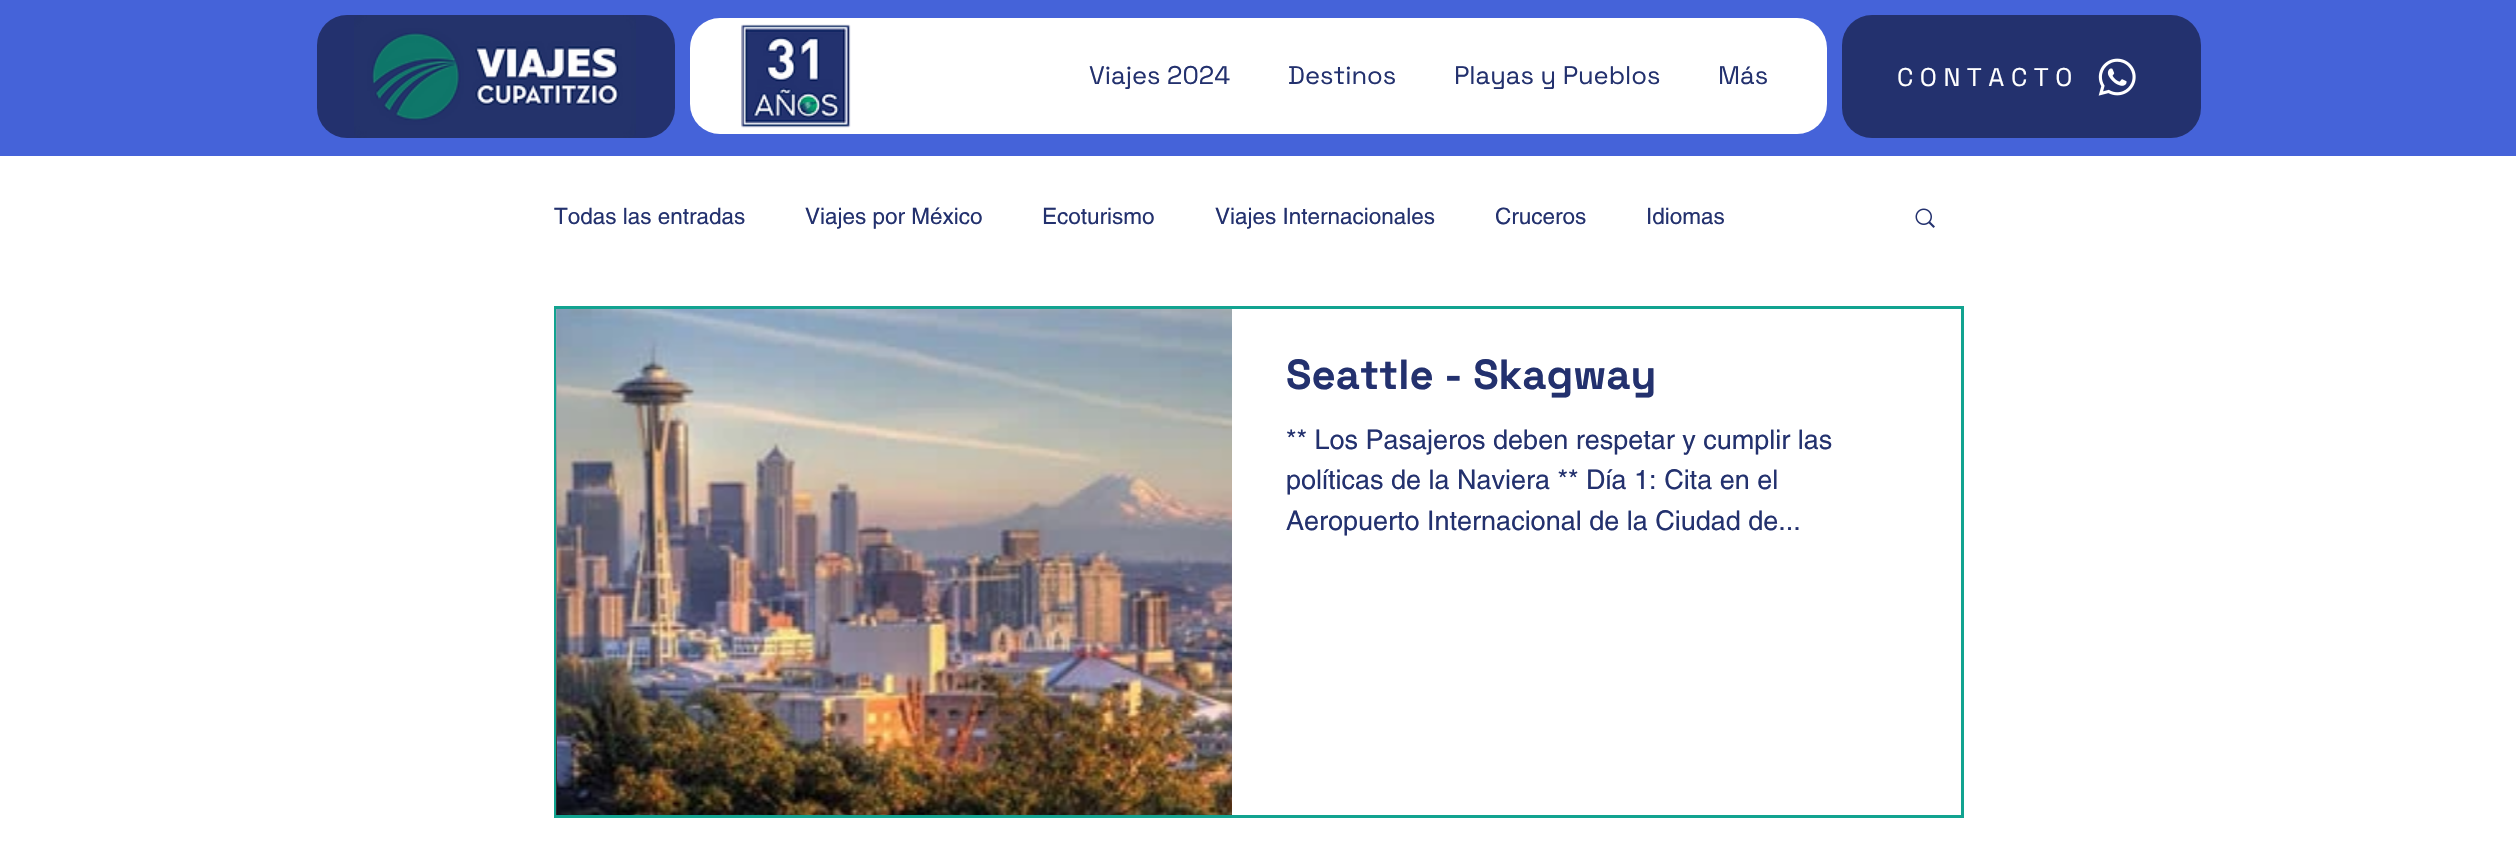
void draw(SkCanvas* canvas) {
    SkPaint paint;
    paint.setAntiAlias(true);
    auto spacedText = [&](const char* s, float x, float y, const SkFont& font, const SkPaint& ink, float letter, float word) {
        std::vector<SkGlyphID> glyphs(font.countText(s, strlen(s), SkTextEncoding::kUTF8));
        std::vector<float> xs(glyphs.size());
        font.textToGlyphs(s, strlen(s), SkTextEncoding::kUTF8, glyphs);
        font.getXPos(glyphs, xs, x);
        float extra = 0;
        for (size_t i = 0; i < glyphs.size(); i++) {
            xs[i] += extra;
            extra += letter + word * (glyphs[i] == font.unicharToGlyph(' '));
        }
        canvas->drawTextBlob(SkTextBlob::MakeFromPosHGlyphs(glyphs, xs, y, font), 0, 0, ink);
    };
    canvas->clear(0xFFFFFFFF);
    paint.setColor(0xFF4563D9);
    canvas->drawRect(SkRect::MakeXYWH(0, 0, 2516, 156), paint);
    paint.setColor(0xFF23316E);
    canvas->drawRoundRect(SkRect::MakeXYWH(317, 15, 358, 123), 30, 30, paint);
    canvas->drawImageRect(SkImages::DeferredFromEncodedData(SkData::MakeFromFileName("img1.png")), SkRect::MakeXYWH(354, 15, 282, 123), SkSamplingOptions());
    paint.setColor(0xFFFFFFFF);
    canvas->drawRoundRect(SkRect::MakeXYWH(690, 18, 1137, 116), 30, 30, paint);
    canvas->drawImageRect(SkImages::DeferredFromEncodedData(SkData::MakeFromFileName("img2.png")), SkRect::MakeXYWH(741, 24, 110, 104), SkSamplingOptions());
    SkFont font1(fontMgr->matchFamilyStyle("Space Grotesk", SkFontStyle::Normal()), 25.5f);
    font1.setSubpixel(true);
    paint.setColor(0xFF23316E);
    canvas->drawString("Viajes 2024", 1089, 84, font1, paint);
    canvas->drawString("Destinos", 1288, 84, font1, paint);
    canvas->drawString("Playas y Pueblos", 1454, 84, font1, paint);
    canvas->drawString("Más", 1718, 84, font1, paint);
    canvas->drawRoundRect(SkRect::MakeXYWH(1842, 15, 359, 123), 30, 30, paint);
    paint.setColor(0xFFFFFFFF);
    spacedText("CONTACTO", 1897, 86, font1, paint, 6.5f, 0);
    canvas->drawImageRect(SkImages::DeferredFromEncodedData(SkData::MakeFromFileName("img3.png")), SkRect::MakeXYWH(2098, 58, 38, 38), SkSamplingOptions());
    SkFont font2(fontMgr->matchFamilyStyle("helvetica", SkFontStyle::Normal()), 22.5f);
    font2.setSubpixel(true);
    paint.setColor(0xFF23316E);
    canvas->drawString("Todas las entradas", 554, 224, font2, paint);
    canvas->drawString("Viajes por México", 805, 224, font2, paint);
    canvas->drawString("Ecoturismo", 1042, 224, font2, paint);
    canvas->drawString("Viajes Internacionales", 1215, 224, font2, paint);
    canvas->drawString("Cruceros", 1495, 224, font2, paint);
    canvas->drawString("Idiomas", 1646, 224, font2, paint);
    canvas->drawImageRect(SkImages::DeferredFromEncodedData(SkData::MakeFromFileName("img4.png")), SkRect::MakeXYWH(1915, 208, 20, 20), SkSamplingOptions());
    paint.setStyle(SkPaint::kStroke_Style);
    paint.setStrokeWidth(3);
    paint.setColor(0xFF12A390);
    canvas->drawRect(SkRect::MakeXYWH(555.5f, 307.5f, 1407, 509), paint);
    canvas->drawImageRect(SkImages::DeferredFromEncodedData(SkData::MakeFromFileName("img5.png")), SkRect::MakeXYWH(556, 309, 1, 506), SkSamplingOptions());
    canvas->drawImageRect(SkImages::DeferredFromEncodedData(SkData::MakeFromFileName("img6.png")), SkRect::MakeXYWH(557, 309, 675, 506), SkSamplingOptions());
    SkFont font3(fontMgr->matchFamilyStyle("Space Grotesk", SkFontStyle::Bold()), 42);
    font3.setSubpixel(true);
    paint.setStyle(SkPaint::kFill_Style);
    paint.setColor(0xFF23316E);
    canvas->drawString("Seattle - Skagway", 1286, 389, font3, paint);
    SkFont font4(fontMgr->matchFamilyStyle("helvetica", SkFontStyle::Normal()), 27);
    font4.setSubpixel(true);
    canvas->drawString("** Los Pasajeros deben respetar y cumplir las", 1286, 449, font4, paint);
    canvas->drawString("políticas de la Naviera ** Día 1: Cita en el", 1286, 489, font4, paint);
    canvas->drawString("Aeropuerto Internacional de la Ciudad de...", 1286, 530, font4, paint);
}
